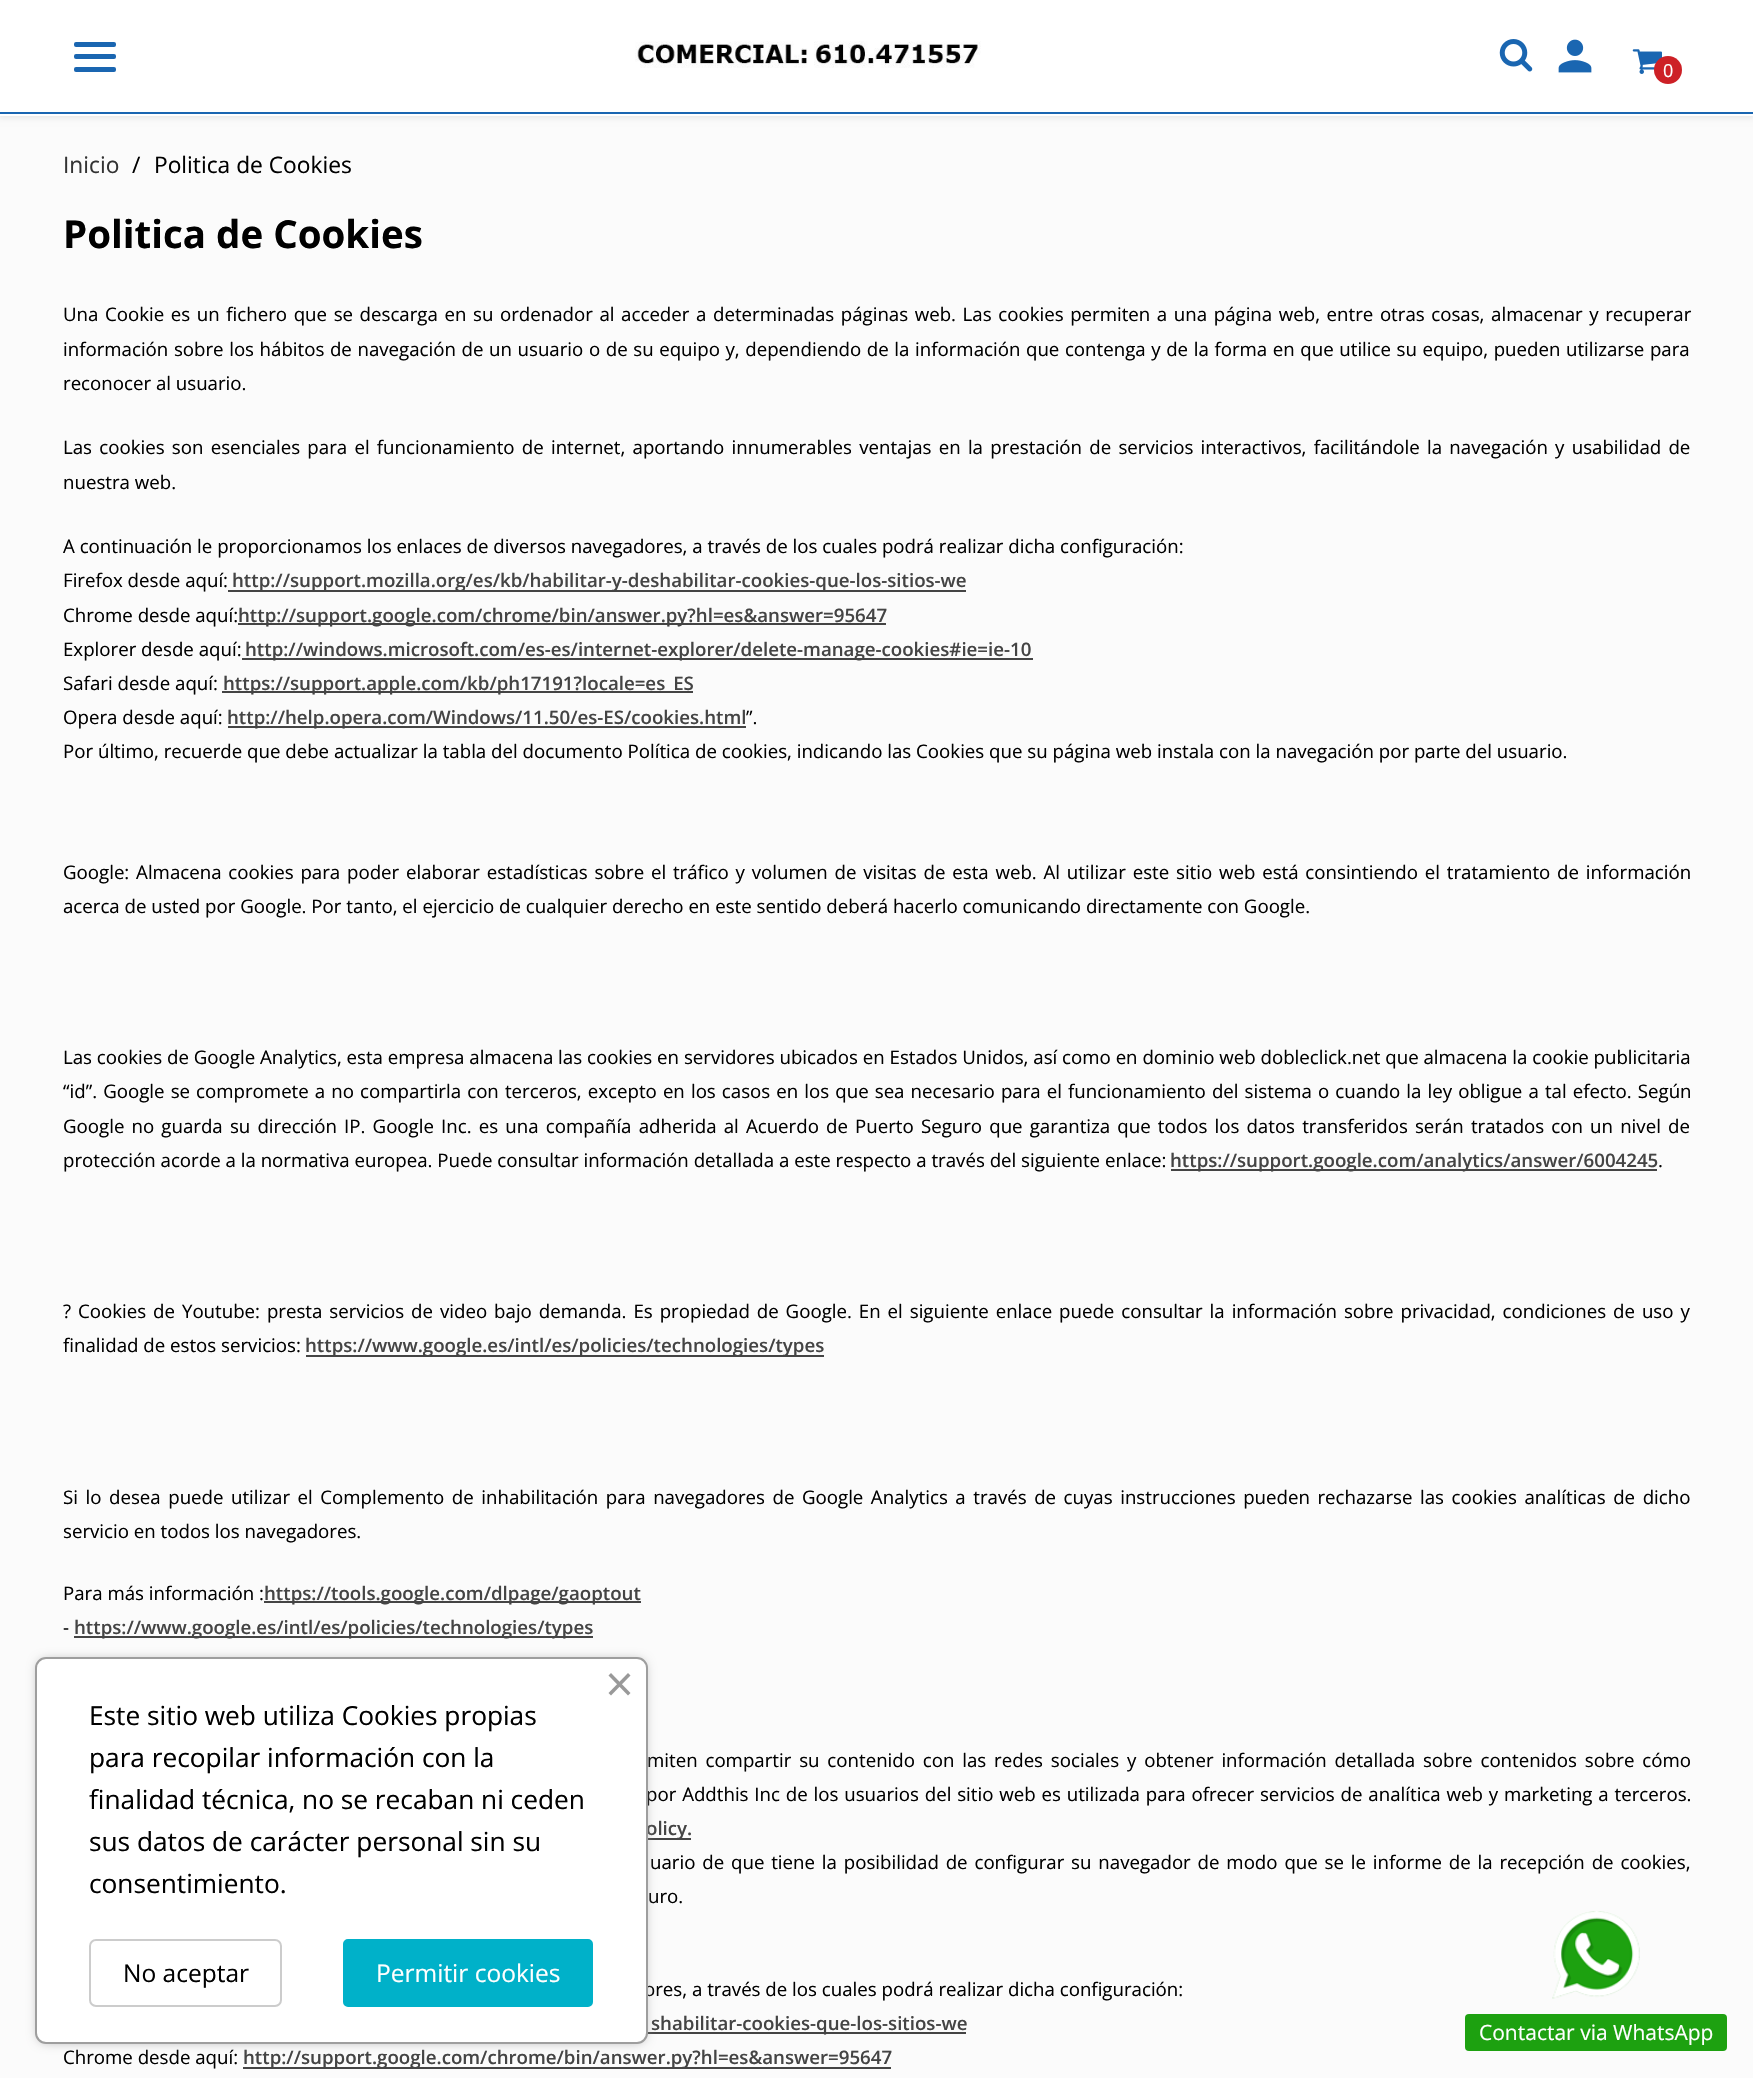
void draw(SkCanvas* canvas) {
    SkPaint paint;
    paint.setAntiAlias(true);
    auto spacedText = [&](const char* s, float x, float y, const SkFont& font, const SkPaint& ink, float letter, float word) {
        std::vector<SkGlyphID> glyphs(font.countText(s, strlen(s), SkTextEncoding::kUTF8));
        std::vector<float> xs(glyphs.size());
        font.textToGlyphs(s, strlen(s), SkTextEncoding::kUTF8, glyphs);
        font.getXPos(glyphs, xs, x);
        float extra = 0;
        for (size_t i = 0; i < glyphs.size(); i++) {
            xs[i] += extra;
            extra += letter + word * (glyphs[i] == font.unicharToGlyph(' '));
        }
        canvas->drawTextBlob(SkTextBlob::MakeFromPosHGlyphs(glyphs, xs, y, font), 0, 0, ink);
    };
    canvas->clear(0xFFFBFBFB);
    paint.setColor(0x1A000000);
    paint.setMaskFilter(SkMaskFilter::MakeBlur(kNormal_SkBlurStyle, 3.5f));
    canvas->drawRect(SkRect::MakeXYWH(-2, -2, 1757, 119), paint);
    paint.setMaskFilter(nullptr);
    paint.setColor(0xFFFFFFFF);
    canvas->drawRect(SkRect::MakeXYWH(0, 0, 1753, 112), paint);
    paint.setColor(0xFF1A66B1);
    canvas->drawRect(SkRect::MakeXYWH(0, 112, 1753, 2), paint);
    canvas->drawRoundRect(SkRect::MakeXYWH(74, 54, 42, 5), 2, 2, paint);
    canvas->drawRoundRect(SkRect::MakeXYWH(74, 42, 42, 5), 2, 2, paint);
    canvas->drawRoundRect(SkRect::MakeXYWH(74, 67, 42, 5), 2, 2, paint);
    canvas->drawImageRect(SkImages::DeferredFromEncodedData(SkData::MakeFromFileName("img1.png")), SkRect::MakeXYWH(635, 41, 346, 27), SkSamplingOptions());
    canvas->drawImageRect(SkImages::DeferredFromEncodedData(SkData::MakeFromFileName("img2.png")), SkRect::MakeXYWH(1499, 39, 34, 33), SkSamplingOptions());
    canvas->drawImageRect(SkImages::DeferredFromEncodedData(SkData::MakeFromFileName("img3.png")), SkRect::MakeXYWH(1558, 39, 34, 34), SkSamplingOptions());
    canvas->drawImageRect(SkImages::DeferredFromEncodedData(SkData::MakeFromFileName("img4.png")), SkRect::MakeXYWH(1632, 49, 30, 25), SkSamplingOptions());
    paint.setColor(0xFFCD2026);
    canvas->drawCircle(1668, 70, 14, paint);
    SkFont font1(fontMgr->matchFamilyStyle("Open Sans", SkFontStyle::Normal()), 18);
    font1.setSubpixel(true);
    paint.setColor(0xFFFFFFFF);
    canvas->drawString("0", 1663, 77, font1, paint);
    canvas->drawRect(SkRect::MakeXYWH(0, 114, 1753, 2), paint);
    SkFont font2(fontMgr->matchFamilyStyle("Open Sans", SkFontStyle::Normal()), 22.75f);
    font2.setSubpixel(true);
    paint.setColor(0xFF333333);
    canvas->drawString("Inicio", 63, 173, font2, paint);
    paint.setColor(0xFF000000);
    canvas->drawString("/", 132, 173, font2, paint);
    canvas->drawString("Politica de Cookies", 154, 173, font2, paint);
    SkFont font3(fontMgr->matchFamilyStyle("Open Sans", SkFontStyle::Bold()), 38.5f);
    font3.setSubpixel(true);
    canvas->drawString("Politica de Cookies", 63, 248, font3, paint);
    SkFont font4(fontMgr->matchFamilyStyle("Open Sans", SkFontStyle::Normal()), 18.67f);
    font4.setSubpixel(true);
    spacedText("Una Cookie es un fichero que se descarga en su ordenador al acceder a determinadas páginas web. Las cookies permiten a una página web, entre otras cosas, almacenar y recuperar", 63, 321, font4, paint, 0, 1.75f);
    spacedText("información sobre los hábitos de navegación de un usuario o de su equipo y, dependiendo de la información que contenga y de la forma en que utilice su equipo, pueden utilizarse para", 63, 356, font4, paint, 0, 0.75f);
    canvas->drawString("reconocer al usuario.", 63, 390, font4, paint);
    spacedText("Las cookies son esenciales para el funcionamiento de internet, aportando innumerables ventajas en la prestación de servicios interactivos, facilitándole la navegación y usabilidad de", 63, 454, font4, paint, 0, 2.4f);
    canvas->drawString("nuestra web.", 63, 489, font4, paint);
    canvas->drawString("A continuación le proporcionamos los enlaces de diversos navegadores, a través de los cuales podrá realizar dicha configuración:", 63, 553, font4, paint);
    canvas->drawString("Firefox desde aquí:", 63, 587, font4, paint);
    paint.setColor(0xFF444444);
    canvas->drawRect(SkRect::MakeXYWH(228, 590, 738, 2), paint);
    SkFont font5(fontMgr->matchFamilyStyle("Open Sans", SkFontStyle(600, SkFontStyle::kNormal_Width, SkFontStyle::kUpright_Slant)), 18.67f);
    font5.setSubpixel(true);
    canvas->drawString("http://support.mozilla.org/es/kb/habilitar-y-deshabilitar-cookies-que-los-sitios-we", 232, 587, font5, paint);
    paint.setColor(0xFF000000);
    canvas->drawString("Chrome desde aquí:", 63, 622, font4, paint);
    paint.setColor(0xFF444444);
    canvas->drawRect(SkRect::MakeXYWH(238, 623, 648, 2), paint);
    canvas->drawString("http://support.google.com/chrome/bin/answer.py?hl=es&answer=95647", 238, 622, font5, paint);
    paint.setColor(0xFF000000);
    canvas->drawString("Explorer desde aquí:", 63, 656, font4, paint);
    paint.setColor(0xFF444444);
    canvas->drawRect(SkRect::MakeXYWH(242, 658, 791, 2), paint);
    canvas->drawString("http://windows.microsoft.com/es-es/internet-explorer/delete-manage-cookies#ie=ie-10", 245, 656, font5, paint);
    paint.setColor(0xFF000000);
    canvas->drawString("Safari desde aquí:", 63, 690, font4, paint);
    paint.setColor(0xFF444444);
    canvas->drawRect(SkRect::MakeXYWH(222, 691, 471, 2), paint);
    canvas->drawString("https://support.apple.com/kb/ph17191?locale=es_ES", 223, 690, font5, paint);
    paint.setColor(0xFF000000);
    canvas->drawString("Opera desde aquí:", 63, 724, font4, paint);
    paint.setColor(0xFF444444);
    canvas->drawRect(SkRect::MakeXYWH(228, 726, 518, 2), paint);
    canvas->drawString("http://help.opera.com/Windows/11.50/es-ES/cookies.html", 227, 724, font5, paint);
    paint.setColor(0xFF000000);
    canvas->drawString("”.", 746, 724, font4, paint);
    canvas->drawString("Por último, recuerde que debe actualizar la tabla del documento Política de cookies, indicando las Cookies que su página web instala con la navegación por parte del usuario.", 63, 758, font4, paint);
    spacedText("Google: Almacena cookies para poder elaborar estadísticas sobre el tráfico y volumen de visitas de esta web. Al utilizar este sitio web está consintiendo el tratamiento de información", 63, 879, font4, paint, 0, 1.95f);
    canvas->drawString("acerca de usted por Google. Por tanto, el ejercicio de cualquier derecho en este sentido deberá hacerlo comunicando directamente con Google.", 63, 913, font4, paint);
    canvas->drawString("Las cookies de Google Analytics, esta empresa almacena las cookies en servidores ubicados en Estados Unidos, así como en dominio web dobleclick.net que almacena la cookie publicitaria", 63, 1064, font4, paint);
    spacedText("“id”. Google se compromete a no compartirla con terceros, excepto en los casos en los que sea necesario para el funcionamiento del sistema o cuando la ley obligue a tal efecto. Según", 63, 1098, font4, paint, 0, 1.25f);
    spacedText("Google no guarda su dirección IP. Google Inc. es una compañía adherida al Acuerdo de Puerto Seguro que garantiza que todos los datos transferidos serán tratados con un nivel de", 63, 1133, font4, paint, 0, 2.3f);
    canvas->drawString("protección acorde a la normativa europea. Puede consultar información detallada a este respecto a través del siguiente enlace:", 63, 1167, font4, paint);
    paint.setColor(0xFF444444);
    canvas->drawRect(SkRect::MakeXYWH(1171, 1169, 486, 2), paint);
    canvas->drawString("https://support.google.com/analytics/answer/6004245", 1170, 1167, font5, paint);
    paint.setColor(0xFF000000);
    canvas->drawString(".", 1658, 1167, font4, paint);
    spacedText("? Cookies de Youtube: presta servicios de video bajo demanda. Es propiedad de Google. En el siguiente enlace puede consultar la información sobre privacidad, condiciones de uso y", 63, 1318, font4, paint, 0, 2.1f);
    canvas->drawString("finalidad de estos servicios:", 63, 1352, font4, paint);
    paint.setColor(0xFF444444);
    canvas->drawRect(SkRect::MakeXYWH(306, 1355, 518, 2), paint);
    canvas->drawString("https://www.google.es/intl/es/policies/technologies/types", 305, 1352, font5, paint);
    paint.setColor(0xFF000000);
    spacedText("Si lo desea puede utilizar el Complemento de inhabilitación para navegadores de Google Analytics a través de cuyas instrucciones pueden rechazarse las cookies analíticas de dicho", 63, 1504, font4, paint, 0, 2.7f);
    canvas->drawString("servicio en todos los navegadores.", 63, 1538, font4, paint);
    canvas->drawString("Para más información :", 63, 1600, font4, paint);
    paint.setColor(0xFF444444);
    canvas->drawRect(SkRect::MakeXYWH(264, 1601, 377, 2), paint);
    canvas->drawString("https://tools.google.com/dlpage/gaoptout", 264, 1600, font5, paint);
    paint.setColor(0xFF000000);
    canvas->drawString("-", 63, 1634, font4, paint);
    paint.setColor(0xFF444444);
    canvas->drawRect(SkRect::MakeXYWH(74, 1636, 519, 2), paint);
    canvas->drawString("https://www.google.es/intl/es/policies/technologies/types", 74, 1634, font5, paint);
    paint.setColor(0xFF000000);
    spacedText("miten compartir su contenido con las redes sociales y obtener información detallada sobre contenidos sobre cómo", 647, 1767, font4, paint, 0, 3);
    spacedText("por Addthis Inc de los usuarios del sitio web es utilizada para ofrecer servicios de analítica web y marketing a terceros.", 646, 1801, font4, paint, 0, 1);
    paint.setColor(0xFF444444);
    canvas->drawRect(SkRect::MakeXYWH(648, 1838, 43, 2), paint);
    canvas->drawString("olicy.", 646, 1835, font5, paint);
    paint.setColor(0xFF000000);
    spacedText("uario de que tiene la posibilidad de configurar su navegador de modo que se le informe de la recepción de cookies,", 650, 1869, font4, paint, 0, 2);
    canvas->drawString("uro.", 648, 1903, font4, paint);
    canvas->drawString("ores, a través de los cuales podrá realizar dicha configuración:", 644, 1996, font4, paint);
    paint.setColor(0xFF444444);
    canvas->drawRect(SkRect::MakeXYWH(647, 2032, 319, 2), paint);
    canvas->drawString("shabilitar-cookies-que-los-sitios-we", 651, 2030, font5, paint);
    paint.setColor(0xFF000000);
    canvas->drawString("Chrome desde aquí:", 63, 2064, font4, paint);
    paint.setColor(0xFF444444);
    canvas->drawRect(SkRect::MakeXYWH(243, 2067, 648, 2), paint);
    canvas->drawString("http://support.google.com/chrome/bin/answer.py?hl=es&answer=95647", 243, 2064, font5, paint);
    canvas->drawImageRect(SkImages::DeferredFromEncodedData(SkData::MakeFromFileName("img5.png")), SkRect::MakeXYWH(1552, 1911, 88, 88), SkSamplingOptions());
    paint.setColor(0xFF1DA110);
    canvas->drawRoundRect(SkRect::MakeXYWH(1465, 2014, 262, 37), 4, 4, paint);
    SkFont font6(fontMgr->matchFamilyStyle("Open Sans", SkFontStyle::Normal()), 21);
    font6.setSubpixel(true);
    paint.setColor(0xFFFFFFFF);
    canvas->drawString("Contactar via WhatsApp", 1479, 2040, font6, paint);
    paint.setColor(0xFF9E9E9E);
    paint.setMaskFilter(SkMaskFilter::MakeBlur(kNormal_SkBlurStyle, 6));
    canvas->drawRoundRect(SkRect::MakeXYWH(39, 1661, 605, 380), 7, 7, paint);
    paint.setMaskFilter(nullptr);
    paint.setColor(0xFFFFFFFF);
    canvas->drawRoundRect(SkRect::MakeXYWH(36, 1658, 611, 385), 10, 10, paint);
    paint.setStyle(SkPaint::kStroke_Style);
    paint.setStrokeWidth(2);
    paint.setColor(0xFF9E9E9E);
    canvas->drawRoundRect(SkRect::MakeXYWH(36, 1658, 611, 385), 10, 10, paint);
    paint.setStyle(SkPaint::kFill_Style);
    paint.setColor(0xFF999999);
    canvas->drawPath(SkPathBuilder().moveTo(608.5f, 1693).lineTo(628, 1673).lineTo(630.5f, 1675.5f).lineTo(611, 1695.5f).close().detach(), paint);
    canvas->drawPath(SkPathBuilder().moveTo(611, 1673).lineTo(630.5f, 1693).lineTo(628, 1695.5f).lineTo(608.5f, 1675.5f).close().detach(), paint);
    SkFont font7(fontMgr->matchFamilyStyle("Open Sans", SkFontStyle::Normal()), 26.25f);
    font7.setSubpixel(true);
    paint.setColor(0xFF000000);
    canvas->drawString("Este sitio web utiliza Cookies propias", 89, 1725, font7, paint);
    canvas->drawString("para recopilar información con la", 89, 1767, font7, paint);
    canvas->drawString("finalidad técnica, no se recaban ni ceden", 89, 1809, font7, paint);
    canvas->drawString("sus datos de carácter personal sin su", 89, 1851, font7, paint);
    canvas->drawString("consentimiento.", 89, 1893, font7, paint);
    paint.setStyle(SkPaint::kStroke_Style);
    paint.setColor(0xFFCCCCCC);
    canvas->drawRoundRect(SkRect::MakeXYWH(90, 1940, 191, 66), 6, 6, paint);
    SkFont font8(fontMgr->matchFamilyStyle("Open Sans", SkFontStyle::Normal()), 24.5f);
    font8.setSubpixel(true);
    paint.setStyle(SkPaint::kFill_Style);
    paint.setColor(0xFF000000);
    canvas->drawString("No aceptar", 123, 1982, font8, paint);
    paint.setColor(0xFF00B1C9);
    canvas->drawRoundRect(SkRect::MakeXYWH(344, 1940, 248, 66), 4, 4, paint);
    paint.setStyle(SkPaint::kStroke_Style);
    canvas->drawRoundRect(SkRect::MakeXYWH(344, 1940, 248, 66), 4, 4, paint);
    paint.setStyle(SkPaint::kFill_Style);
    paint.setColor(0xFFFFFFFF);
    canvas->drawString("Permitir cookies", 376, 1982, font8, paint);
}
